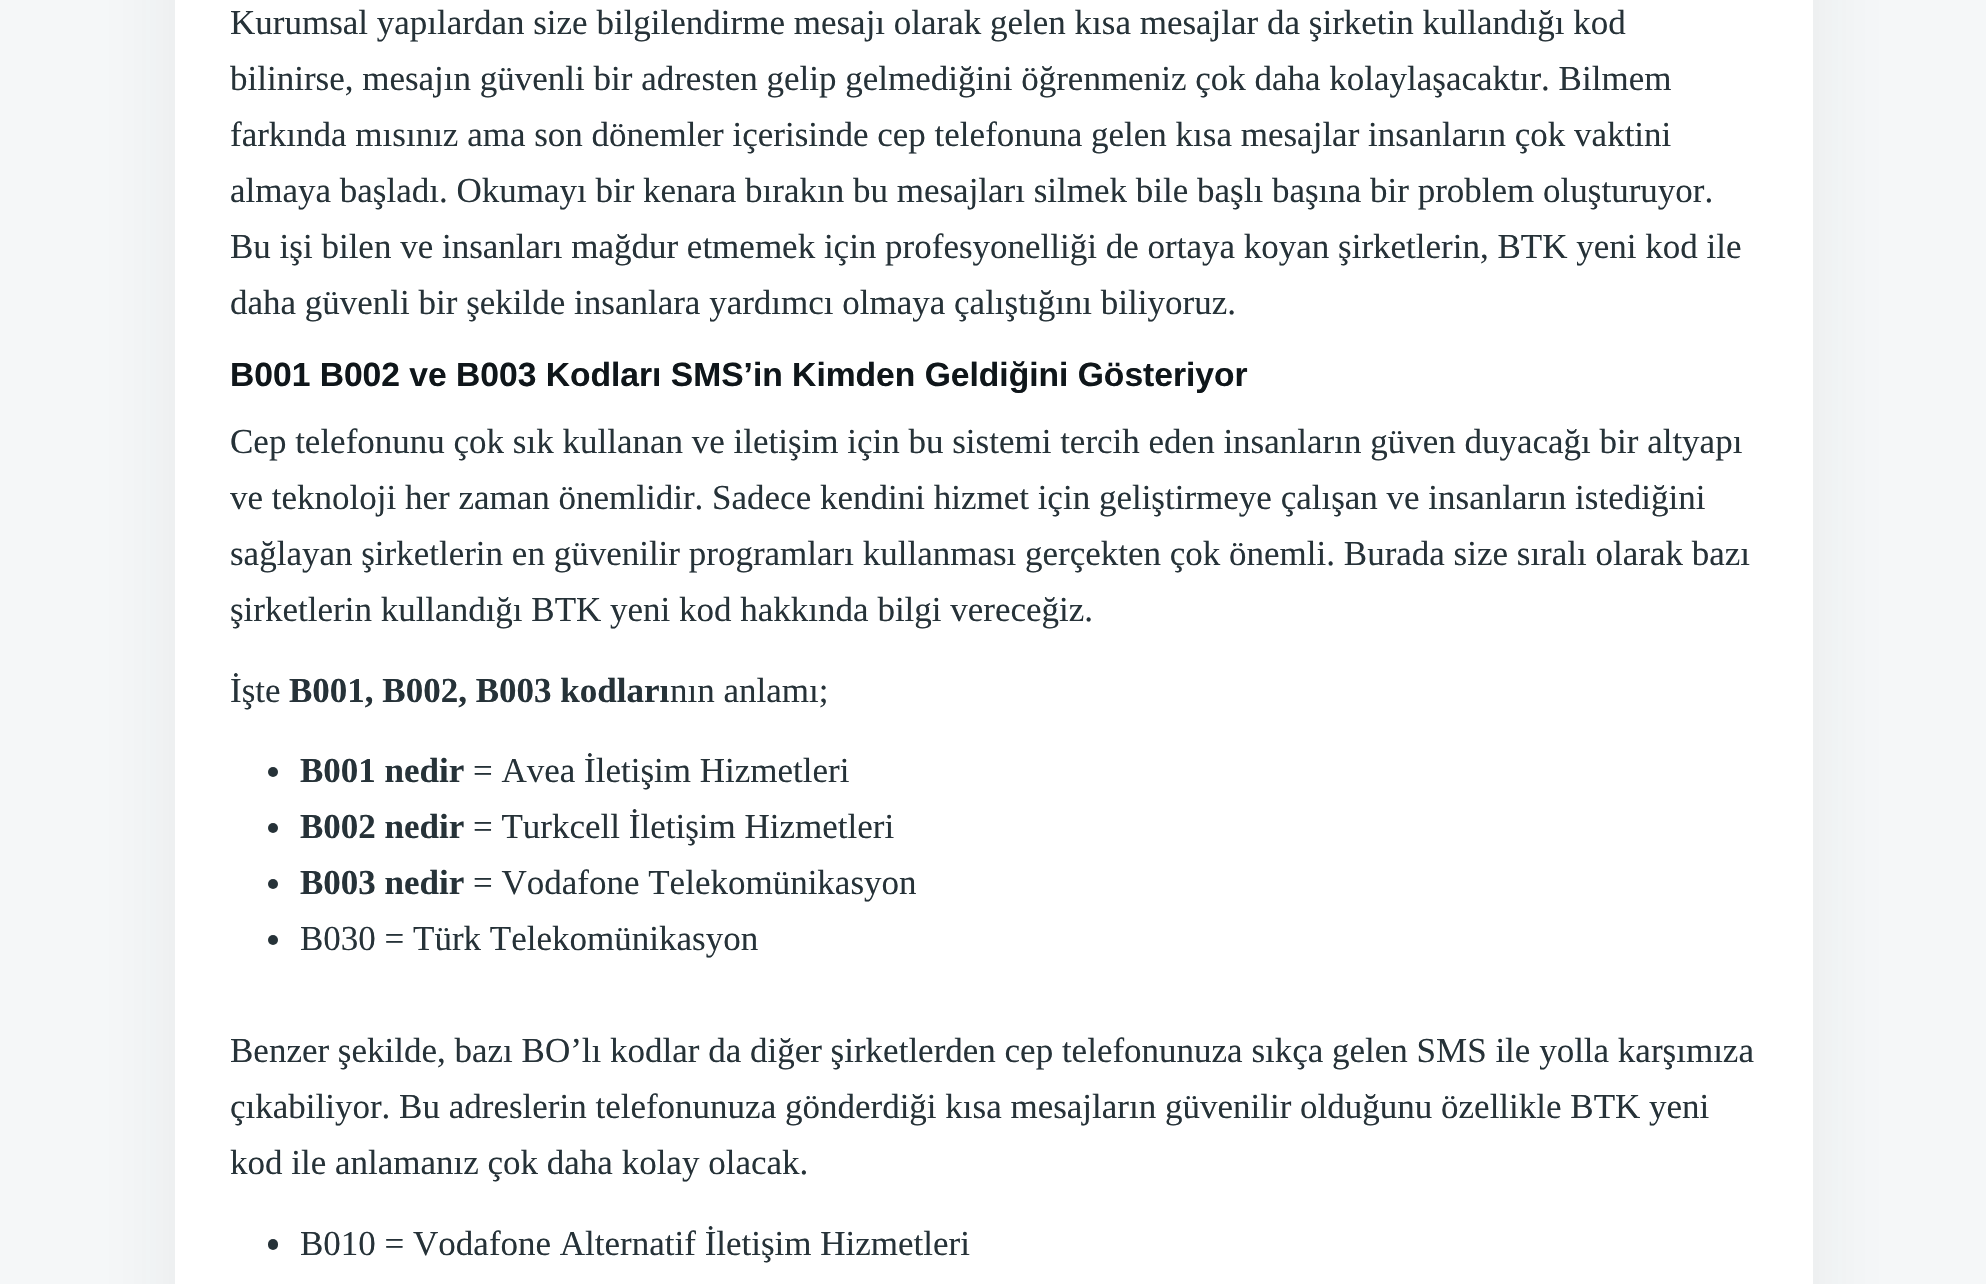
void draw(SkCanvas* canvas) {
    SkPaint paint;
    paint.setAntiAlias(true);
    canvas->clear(0xFFF5F7F8);
    paint.setColor(0x12263238);
    paint.setMaskFilter(SkMaskFilter::MakeBlur(kNormal_SkBlurStyle, 44));
    canvas->drawRoundRect(SkRect::MakeXYWH(175, -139, 1638, 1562), 7, 7, paint);
    paint.setMaskFilter(nullptr);
    paint.setColor(0xFFFFFFFF);
    canvas->drawRect(SkRect::MakeXYWH(175, 0, 1638, 1284), paint);
    SkFont font1(fontMgr->matchFamilyStyle("Liberation Serif", SkFontStyle::Normal()), 35);
    font1.setSubpixel(true);
    paint.setColor(0xFF263238);
    canvas->drawString("Kurumsal yapılardan size bilgilendirme mesajı olarak gelen kısa mesajlar da şirketin kullandığı kod", 230, 34, font1, paint);
    canvas->drawString("bilinirse, mesajın güvenli bir adresten gelip gelmediğini öğrenmeniz çok daha kolaylaşacaktır. Bilmem", 230, 90, font1, paint);
    canvas->drawString("farkında mısınız ama son dönemler içerisinde cep telefonuna gelen kısa mesajlar insanların çok vaktini", 230, 146, font1, paint);
    canvas->drawString("almaya başladı. Okumayı bir kenara bırakın bu mesajları silmek bile başlı başına bir problem oluşturuyor.", 230, 202, font1, paint);
    canvas->drawString("Bu işi bilen ve insanları mağdur etmemek için profesyonelliği de ortaya koyan şirketlerin, BTK yeni kod ile", 230, 258, font1, paint);
    canvas->drawString("daha güvenli bir şekilde insanlara yardımcı olmaya çalıştığını biliyoruz.", 230, 314, font1, paint);
    SkFont font2(fontMgr->matchFamilyStyle("Liberation Sans", SkFontStyle::Bold()), 33.6f);
    font2.setSubpixel(true);
    paint.setColor(0xFF0F161A);
    canvas->drawString("B001 B002 ve B003 Kodları SMS’in Kimden Geldiğini Gösteriyor", 230, 386, font2, paint);
    paint.setColor(0xFF263238);
    canvas->drawString("Cep telefonunu çok sık kullanan ve iletişim için bu sistemi tercih eden insanların güven duyacağı bir altyapı", 230, 453, font1, paint);
    canvas->drawString("ve teknoloji her zaman önemlidir. Sadece kendini hizmet için geliştirmeye çalışan ve insanların istediğini", 230, 509, font1, paint);
    canvas->drawString("sağlayan şirketlerin en güvenilir programları kullanması gerçekten çok önemli. Burada size sıralı olarak bazı", 230, 565, font1, paint);
    canvas->drawString("şirketlerin kullandığı BTK yeni kod hakkında bilgi vereceğiz.", 230, 621, font1, paint);
    canvas->drawString("İşte", 230, 702, font1, paint);
    SkFont font3(fontMgr->matchFamilyStyle("Liberation Serif", SkFontStyle::Bold()), 35);
    font3.setSubpixel(true);
    canvas->drawString("B001, B002, B003 kodları", 289, 702, font3, paint);
    canvas->drawString("nın anlamı;", 670, 702, font1, paint);
    canvas->drawCircle(273, 772, 5, paint);
    canvas->drawString("B001 nedir", 300, 782, font3, paint);
    canvas->drawString("= Avea İletişim Hizmetleri", 473, 782, font1, paint);
    canvas->drawCircle(273, 828, 5, paint);
    canvas->drawString("B002 nedir", 300, 838, font3, paint);
    canvas->drawString("= Turkcell İletişim Hizmetleri", 473, 838, font1, paint);
    canvas->drawCircle(273, 884, 5, paint);
    canvas->drawString("B003 nedir", 300, 894, font3, paint);
    canvas->drawString("= Vodafone Telekomünikasyon", 473, 894, font1, paint);
    canvas->drawCircle(273, 940, 5, paint);
    canvas->drawString("B030 = Türk Telekomünikasyon", 300, 950, font1, paint);
    canvas->drawString("Benzer şekilde, bazı BO’lı kodlar da diğer şirketlerden cep telefonunuza sıkça gelen SMS ile yolla karşımıza", 230, 1062, font1, paint);
    canvas->drawString("çıkabiliyor. Bu adreslerin telefonunuza gönderdiği kısa mesajların güvenilir olduğunu özellikle BTK yeni", 230, 1118, font1, paint);
    canvas->drawString("kod ile anlamanız çok daha kolay olacak.", 230, 1174, font1, paint);
    canvas->drawRoundRect(SkRect::MakeXYWH(268, 1239, 10, 11), 5, 5, paint);
    canvas->drawString("B010 = Vodafone Alternatif İletişim Hizmetleri", 300, 1255, font1, paint);
}
